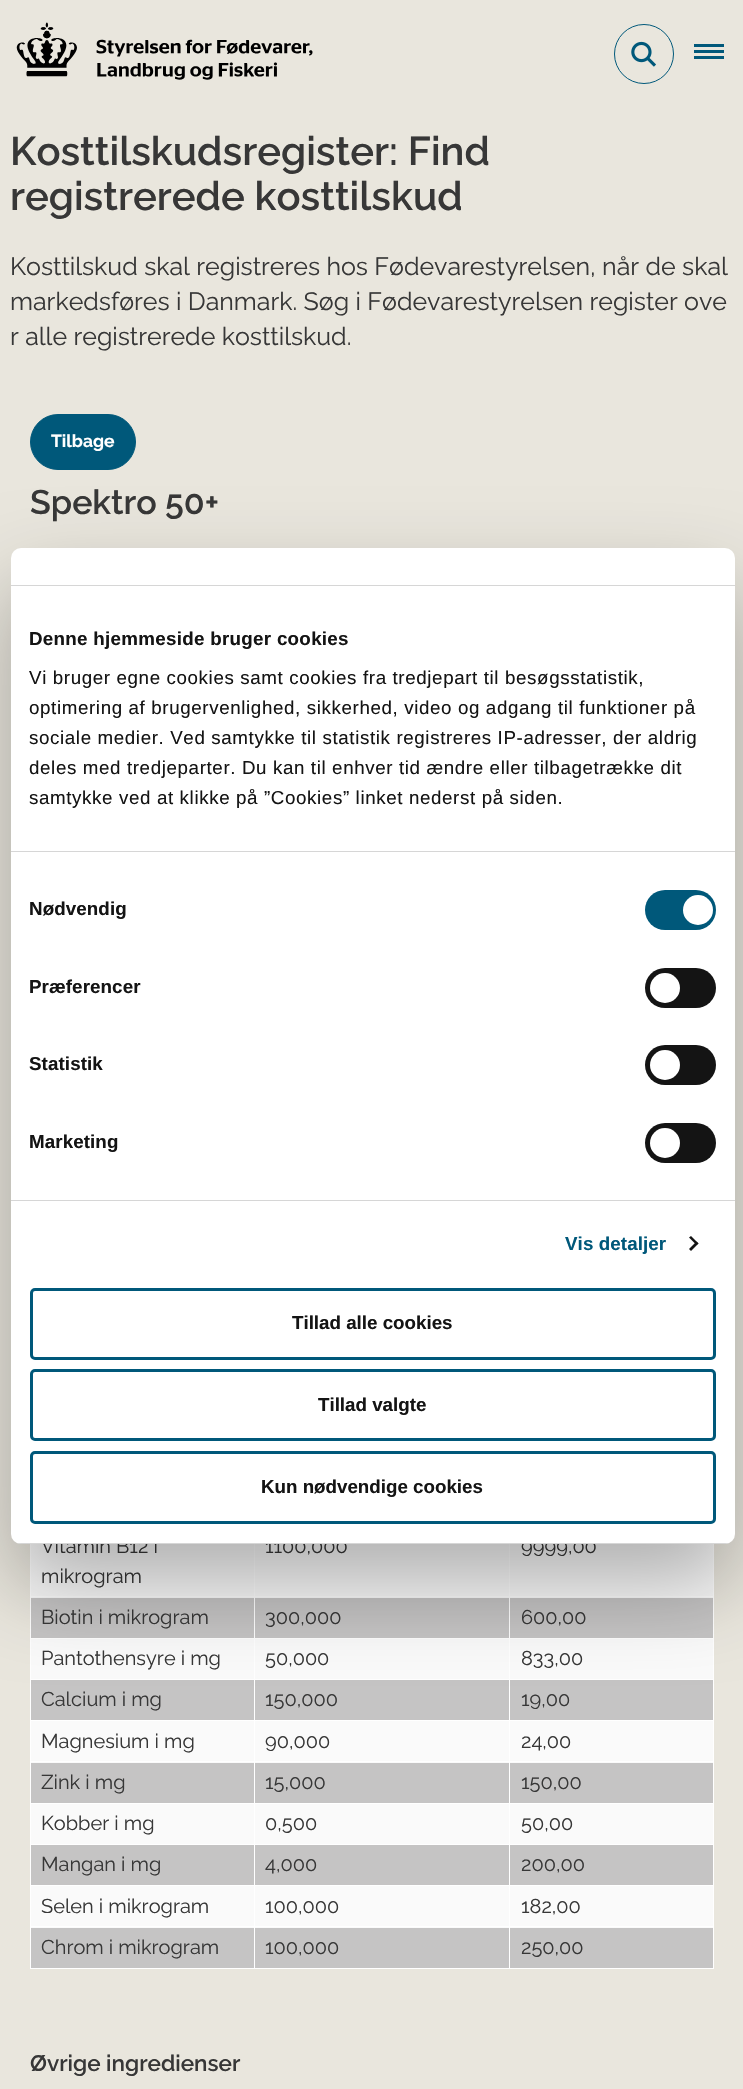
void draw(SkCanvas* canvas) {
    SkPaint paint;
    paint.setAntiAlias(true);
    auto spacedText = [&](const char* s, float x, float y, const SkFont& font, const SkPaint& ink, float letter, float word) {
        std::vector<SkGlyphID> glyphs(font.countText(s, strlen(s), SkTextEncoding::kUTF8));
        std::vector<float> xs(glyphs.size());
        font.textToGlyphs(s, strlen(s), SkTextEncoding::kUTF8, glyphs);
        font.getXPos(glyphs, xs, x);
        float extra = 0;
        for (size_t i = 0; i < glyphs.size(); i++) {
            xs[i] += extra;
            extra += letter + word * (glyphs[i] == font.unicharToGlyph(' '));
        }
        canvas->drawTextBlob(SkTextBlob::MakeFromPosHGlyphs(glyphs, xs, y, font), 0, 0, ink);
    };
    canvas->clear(0xFFE9E6DD);
    canvas->drawImageRect(SkImages::DeferredFromEncodedData(SkData::MakeFromFileName("img1.png")), SkRect::MakeXYWH(16, 22, 297, 58), SkSamplingOptions());
    paint.setStyle(SkPaint::kStroke_Style);
    paint.setStrokeWidth(1);
    paint.setColor(0xFF00587A);
    canvas->drawCircle(644, 54, 29.5f, paint);
    canvas->drawImageRect(SkImages::DeferredFromEncodedData(SkData::MakeFromFileName("img2.png")), SkRect::MakeXYWH(631, 41, 25, 26), SkSamplingOptions());
    paint.setStyle(SkPaint::kFill_Style);
    canvas->drawRect(SkRect::MakeXYWH(694, 50, 30, 3), paint);
    canvas->drawRect(SkRect::MakeXYWH(694, 44, 30, 3), paint);
    canvas->drawRect(SkRect::MakeXYWH(694, 56, 30, 3), paint);
    SkFont font1(fontMgr->matchFamilyStyle("Raleway", SkFontStyle(600, SkFontStyle::kNormal_Width, SkFontStyle::kUpright_Slant)), 40);
    font1.setSubpixel(true);
    paint.setColor(0xFF373737);
    canvas->drawString("Kosttilskudsregister: Find", 10, 165, font1, paint);
    canvas->drawString("registrerede kosttilskud", 10, 210, font1, paint);
    SkFont font2(fontMgr->matchFamilyStyle("Raleway", SkFontStyle::Normal()), 25);
    font2.setSubpixel(true);
    canvas->drawString("Kosttilskud skal registreres hos Fødevarestyrelsen, når de skal", 10, 275, font2, paint);
    canvas->drawString("markedsføres i Danmark. Søg i Fødevarestyrelsen register ove", 10, 310, font2, paint);
    canvas->drawString("r alle registrerede kosttilskud.", 10, 345, font2, paint);
    paint.setColor(0xFF00587A);
    canvas->drawRoundRect(SkRect::MakeXYWH(30.5f, 414.5f, 105, 55), 27.5f, 27.5f, paint);
    paint.setStyle(SkPaint::kStroke_Style);
    canvas->drawRoundRect(SkRect::MakeXYWH(30.5f, 414.5f, 105, 55), 27.5f, 27.5f, paint);
    SkFont font3(fontMgr->matchFamilyStyle("Raleway", SkFontStyle::Bold()), 17.5f);
    font3.setSubpixel(true);
    paint.setStyle(SkPaint::kFill_Style);
    paint.setColor(0xFFFFFFFF);
    canvas->drawString("Tilbage", 51, 447, font3, paint);
    SkFont font4(fontMgr->matchFamilyStyle("Raleway", SkFontStyle(600, SkFontStyle::kNormal_Width, SkFontStyle::kUpright_Slant)), 34);
    font4.setSubpixel(true);
    paint.setColor(0xFF373737);
    canvas->drawString("Spektro 50+", 30, 514, font4, paint);
    paint.setColor(0xFFFAFAFA);
    canvas->drawRect(SkRect::MakeXYWH(31, 1544, 682, 54), paint);
    SkFont font5(fontMgr->matchFamilyStyle("Raleway", SkFontStyle::Normal()), 20);
    font5.setSubpixel(true);
    paint.setColor(0xFF373737);
    canvas->drawString("Vitamin B12 i", 41, 1553, font5, paint);
    canvas->drawString("mikrogram", 41, 1583, font5, paint);
    paint.setColor(0xFFFFFFFF);
    canvas->drawRect(SkRect::MakeXYWH(509, 1596, 205, 1), paint);
    paint.setColor(0xFFC5C4C4);
    canvas->drawRect(SkRect::MakeXYWH(31, 1598, 682, 40), paint);
    paint.setColor(0xFFFFFFFF);
    canvas->drawRect(SkRect::MakeXYWH(509, 1638, 205, 1), paint);
    paint.setColor(0xFFFAFAFA);
    canvas->drawRect(SkRect::MakeXYWH(31, 1639, 682, 40), paint);
    paint.setColor(0xFFFFFFFF);
    canvas->drawRect(SkRect::MakeXYWH(509, 1679, 205, 1), paint);
    paint.setColor(0xFFC5C4C4);
    canvas->drawRect(SkRect::MakeXYWH(31, 1680, 682, 40), paint);
    paint.setColor(0xFFFFFFFF);
    canvas->drawRect(SkRect::MakeXYWH(509, 1720, 205, 1), paint);
    paint.setColor(0xFFFAFAFA);
    canvas->drawRect(SkRect::MakeXYWH(31, 1721, 682, 42), paint);
    paint.setColor(0xFFFFFFFF);
    canvas->drawRect(SkRect::MakeXYWH(509, 1761, 205, 1), paint);
    paint.setColor(0xFFC5C4C4);
    canvas->drawRect(SkRect::MakeXYWH(31, 1763, 682, 40), paint);
    paint.setColor(0xFFFFFFFF);
    canvas->drawRect(SkRect::MakeXYWH(509, 1803, 205, 1), paint);
    paint.setColor(0xFFFAFAFA);
    canvas->drawRect(SkRect::MakeXYWH(31, 1804, 682, 40), paint);
    paint.setColor(0xFFFFFFFF);
    canvas->drawRect(SkRect::MakeXYWH(509, 1844, 205, 1), paint);
    paint.setColor(0xFFC5C4C4);
    canvas->drawRect(SkRect::MakeXYWH(31, 1845, 682, 40), paint);
    paint.setColor(0xFFFFFFFF);
    canvas->drawRect(SkRect::MakeXYWH(509, 1885, 205, 1), paint);
    paint.setColor(0xFFFAFAFA);
    canvas->drawRect(SkRect::MakeXYWH(31, 1886, 682, 42), paint);
    paint.setColor(0xFFFFFFFF);
    canvas->drawRect(SkRect::MakeXYWH(509, 1926, 205, 1), paint);
    paint.setColor(0xFFC5C4C4);
    canvas->drawRect(SkRect::MakeXYWH(31, 1928, 682, 40), paint);
    paint.setColor(0xFFFFFFFF);
    canvas->drawRect(SkRect::MakeXYWH(713, 1926, 1, 43), paint);
    canvas->drawRect(SkRect::MakeXYWH(509, 1968, 205, 1), paint);
    canvas->drawRect(SkRect::MakeXYWH(509, 1926, 1, 43), paint);
    canvas->drawRect(SkRect::MakeXYWH(254, 1926, 256, 1), paint);
    canvas->drawRect(SkRect::MakeXYWH(509, 1885, 1, 43), paint);
    canvas->drawRect(SkRect::MakeXYWH(254, 1885, 256, 1), paint);
    canvas->drawRect(SkRect::MakeXYWH(509, 1844, 1, 42), paint);
    canvas->drawRect(SkRect::MakeXYWH(254, 1844, 256, 1), paint);
    canvas->drawRect(SkRect::MakeXYWH(509, 1803, 1, 42), paint);
    canvas->drawRect(SkRect::MakeXYWH(254, 1803, 256, 1), paint);
    canvas->drawRect(SkRect::MakeXYWH(509, 1761, 1, 43), paint);
    canvas->drawRect(SkRect::MakeXYWH(254, 1761, 256, 1), paint);
    canvas->drawRect(SkRect::MakeXYWH(509, 1720, 1, 43), paint);
    canvas->drawRect(SkRect::MakeXYWH(254, 1720, 256, 1), paint);
    canvas->drawRect(SkRect::MakeXYWH(509, 1679, 1, 42), paint);
    canvas->drawRect(SkRect::MakeXYWH(254, 1679, 256, 1), paint);
    canvas->drawRect(SkRect::MakeXYWH(509, 1638, 1, 42), paint);
    canvas->drawRect(SkRect::MakeXYWH(254, 1638, 256, 1), paint);
    canvas->drawRect(SkRect::MakeXYWH(509, 1596, 1, 43), paint);
    canvas->drawRect(SkRect::MakeXYWH(254, 1596, 256, 1), paint);
    canvas->drawRect(SkRect::MakeXYWH(254, 1968, 256, 1), paint);
    canvas->drawRect(SkRect::MakeXYWH(254, 1926, 1, 43), paint);
    canvas->drawRect(SkRect::MakeXYWH(30, 1926, 225, 1), paint);
    canvas->drawRect(SkRect::MakeXYWH(254, 1885, 1, 43), paint);
    canvas->drawRect(SkRect::MakeXYWH(30, 1885, 225, 1), paint);
    canvas->drawRect(SkRect::MakeXYWH(254, 1844, 1, 42), paint);
    canvas->drawRect(SkRect::MakeXYWH(30, 1844, 225, 1), paint);
    canvas->drawRect(SkRect::MakeXYWH(254, 1803, 1, 42), paint);
    canvas->drawRect(SkRect::MakeXYWH(30, 1803, 225, 1), paint);
    canvas->drawRect(SkRect::MakeXYWH(254, 1761, 1, 43), paint);
    canvas->drawRect(SkRect::MakeXYWH(30, 1761, 225, 1), paint);
    canvas->drawRect(SkRect::MakeXYWH(254, 1720, 1, 43), paint);
    canvas->drawRect(SkRect::MakeXYWH(30, 1720, 225, 1), paint);
    canvas->drawRect(SkRect::MakeXYWH(254, 1679, 1, 42), paint);
    canvas->drawRect(SkRect::MakeXYWH(30, 1679, 225, 1), paint);
    canvas->drawRect(SkRect::MakeXYWH(254, 1638, 1, 42), paint);
    canvas->drawRect(SkRect::MakeXYWH(30, 1638, 225, 1), paint);
    canvas->drawRect(SkRect::MakeXYWH(254, 1596, 1, 43), paint);
    canvas->drawRect(SkRect::MakeXYWH(30, 1596, 225, 1), paint);
    canvas->drawRect(SkRect::MakeXYWH(254, 1544, 1, 54), paint);
    paint.setColor(0xFF373737);
    canvas->drawString("1100,000", 265, 1553, font5, paint);
    paint.setColor(0xFFFFFFFF);
    canvas->drawRect(SkRect::MakeXYWH(509, 1544, 1, 54), paint);
    paint.setColor(0xFF373737);
    canvas->drawString("9999,00", 521, 1553, font5, paint);
    paint.setColor(0xFFFFFFFF);
    canvas->drawRect(SkRect::MakeXYWH(30, 1968, 225, 1), paint);
    canvas->drawRect(SkRect::MakeXYWH(30, 1926, 1, 43), paint);
    canvas->drawRect(SkRect::MakeXYWH(30, 1885, 1, 43), paint);
    canvas->drawRect(SkRect::MakeXYWH(30, 1844, 1, 42), paint);
    canvas->drawRect(SkRect::MakeXYWH(30, 1803, 1, 42), paint);
    canvas->drawRect(SkRect::MakeXYWH(30, 1761, 1, 43), paint);
    canvas->drawRect(SkRect::MakeXYWH(30, 1720, 1, 43), paint);
    canvas->drawRect(SkRect::MakeXYWH(30, 1679, 1, 42), paint);
    canvas->drawRect(SkRect::MakeXYWH(30, 1638, 1, 42), paint);
    canvas->drawRect(SkRect::MakeXYWH(30, 1544, 1, 95), paint);
    paint.setColor(0xFF373737);
    canvas->drawString("Biotin i mikrogram", 41, 1624, font5, paint);
    canvas->drawString("300,000", 265, 1624, font5, paint);
    paint.setColor(0xFFFFFFFF);
    canvas->drawRect(SkRect::MakeXYWH(713, 1885, 1, 43), paint);
    canvas->drawRect(SkRect::MakeXYWH(713, 1844, 1, 42), paint);
    canvas->drawRect(SkRect::MakeXYWH(713, 1803, 1, 42), paint);
    canvas->drawRect(SkRect::MakeXYWH(713, 1761, 1, 43), paint);
    canvas->drawRect(SkRect::MakeXYWH(713, 1720, 1, 43), paint);
    canvas->drawRect(SkRect::MakeXYWH(713, 1679, 1, 42), paint);
    canvas->drawRect(SkRect::MakeXYWH(713, 1638, 1, 42), paint);
    canvas->drawRect(SkRect::MakeXYWH(713, 1544, 1, 95), paint);
    paint.setColor(0xFF373737);
    canvas->drawString("600,00", 521, 1624, font5, paint);
    canvas->drawString("Pantothensyre i mg", 41, 1665, font5, paint);
    canvas->drawString("50,000", 265, 1665, font5, paint);
    canvas->drawString("833,00", 521, 1665, font5, paint);
    canvas->drawString("Calcium i mg", 41, 1706, font5, paint);
    canvas->drawString("150,000", 265, 1706, font5, paint);
    canvas->drawString("19,00", 521, 1706, font5, paint);
    canvas->drawString("Magnesium i mg", 41, 1748, font5, paint);
    canvas->drawString("90,000", 265, 1748, font5, paint);
    canvas->drawString("24,00", 521, 1748, font5, paint);
    canvas->drawString("Zink i mg", 41, 1789, font5, paint);
    canvas->drawString("15,000", 265, 1789, font5, paint);
    canvas->drawString("150,00", 521, 1789, font5, paint);
    canvas->drawString("Kobber i mg", 41, 1830, font5, paint);
    canvas->drawString("0,500", 265, 1830, font5, paint);
    canvas->drawString("50,00", 521, 1830, font5, paint);
    canvas->drawString("Mangan i mg", 41, 1871, font5, paint);
    canvas->drawString("4,000", 265, 1871, font5, paint);
    canvas->drawString("200,00", 521, 1871, font5, paint);
    canvas->drawString("Selen i mikrogram", 41, 1913, font5, paint);
    canvas->drawString("100,000", 265, 1913, font5, paint);
    canvas->drawString("182,00", 521, 1913, font5, paint);
    canvas->drawString("Chrom i mikrogram", 41, 1954, font5, paint);
    canvas->drawString("100,000", 265, 1954, font5, paint);
    canvas->drawString("250,00", 521, 1954, font5, paint);
    SkFont font6(fontMgr->matchFamilyStyle("Raleway", SkFontStyle(600, SkFontStyle::kNormal_Width, SkFontStyle::kUpright_Slant)), 22.5f);
    font6.setSubpixel(true);
    canvas->drawString("Øvrige ingredienser", 30, 2071, font6, paint);
    paint.setColor(0x4D000000);
    paint.setMaskFilter(SkMaskFilter::MakeBlur(kNormal_SkBlurStyle, 42.5f));
    canvas->drawRoundRect(SkRect::MakeXYWH(11, 588, 724, 996), 10, 10, paint);
    paint.setMaskFilter(nullptr);
    paint.setColor(0xFFFFFFFF);
    canvas->drawRoundRect(SkRect::MakeXYWH(11, 548, 724, 996), 10, 10, paint);
    paint.setColor(0xFFD6D6D6);
    canvas->drawRect(SkRect::MakeXYWH(11, 585, 724, 1), paint);
    canvas->drawRect(SkRect::MakeXYWH(11, 851, 724, 1), paint);
    SkFont font7(fontMgr->matchFamilyStyle("Liberation Sans", SkFontStyle::Bold()), 18.75f);
    font7.setSubpixel(true);
    paint.setColor(0xFF141414);
    spacedText("Denne hjemmeside bruger cookies", 29, 645, font7, paint, 0.3f, 0);
    SkFont font8(fontMgr->matchFamilyStyle("Liberation Sans", SkFontStyle::Normal()), 18.75f);
    font8.setSubpixel(true);
    spacedText("Vi bruger egne cookies samt cookies fra tredjepart til besøgsstatistik,", 29, 684, font8, paint, 0.62f, 0);
    spacedText("optimering af brugervenlighed, sikkerhed, video og adgang til funktioner på", 29, 714, font8, paint, 0.62f, 0);
    spacedText("sociale medier. Ved samtykke til statistik registreres IP-adresser, der aldrig", 29, 744, font8, paint, 0.62f, 0);
    spacedText("deles med tredjeparter. Du kan til enhver tid ændre eller tilbagetrække dit", 29, 774, font8, paint, 0.62f, 0);
    spacedText("samtykke ved at klikke på ”Cookies” linket nederst på siden.", 29, 804, font8, paint, 0.62f, 0);
    paint.setColor(0xFFD6D6D6);
    canvas->drawRect(SkRect::MakeXYWH(11, 1200, 724, 1), paint);
    paint.setColor(0xFF141414);
    spacedText("Nødvendig", 29, 915, font7, paint, 0.1f, 0);
    paint.setColor(0xFF00587A);
    canvas->drawRoundRect(SkRect::MakeXYWH(645, 890, 71, 40), 20, 20, paint);
    paint.setColor(0xFFFFFFFF);
    canvas->drawCircle(698, 910, 15, paint);
    paint.setColor(0xFF141414);
    spacedText("Præferencer", 29, 993, font7, paint, 0.1f, 0);
    canvas->drawRoundRect(SkRect::MakeXYWH(645, 968, 71, 40), 20, 20, paint);
    paint.setColor(0xFFFFFFFF);
    canvas->drawCircle(665, 988, 15, paint);
    paint.setColor(0xFF141414);
    spacedText("Statistik", 29, 1070, font7, paint, 0.1f, 0);
    canvas->drawRoundRect(SkRect::MakeXYWH(645, 1045, 71, 40), 20, 20, paint);
    paint.setColor(0xFFFFFFFF);
    canvas->drawCircle(665, 1065, 15, paint);
    paint.setColor(0xFF141414);
    spacedText("Marketing", 29, 1148, font7, paint, 0.1f, 0);
    canvas->drawRoundRect(SkRect::MakeXYWH(645, 1123, 71, 40), 20, 20, paint);
    paint.setColor(0xFFFFFFFF);
    canvas->drawCircle(665, 1143, 15, paint);
    paint.setColor(0xFF00587A);
    spacedText("Vis detaljer", 565, 1250, font7, paint, 0.1f, 0);
    paint.setColor(0xFF141414);
    canvas->drawPath(SkPathBuilder().moveTo(691, 1236).lineTo(698.5f, 1243.5f).lineTo(696.5f, 1245).lineTo(689, 1237.5f).close().detach(), paint);
    canvas->drawPath(SkPathBuilder().moveTo(696.5f, 1241.5f).lineTo(698.5f, 1243.5f).lineTo(691, 1251).lineTo(689, 1249).close().detach(), paint);
    canvas->save();
    canvas->clipPath(SkPathBuilder().moveTo(21, 548).lineTo(725, 548).cubicTo(730.5f, 548, 735, 552.5f, 735, 558).lineTo(735, 1534).cubicTo(735, 1539.5f, 730.5f, 1544, 725, 1544).lineTo(21, 1544).cubicTo(15.5f, 1544, 11, 1539.5f, 11, 1534).lineTo(11, 558).cubicTo(11, 552.5f, 15.5f, 548, 21, 548).close().detach(), true);
    paint.setColor(0xFFD6D6D6);
    canvas->drawRect(SkRect::MakeXYWH(11, 1543, 724, 1), paint);
    canvas->restore();
    paint.setStyle(SkPaint::kStroke_Style);
    paint.setStrokeWidth(3);
    paint.setColor(0xFF00587A);
    canvas->drawRoundRect(SkRect::MakeXYWH(31.5f, 1289.5f, 683, 69), 3.5f, 3.5f, paint);
    paint.setStyle(SkPaint::kFill_Style);
    paint.setColor(0xFF141414);
    canvas->drawString("Tillad alle cookies", 292, 1329, font7, paint);
    paint.setStyle(SkPaint::kStroke_Style);
    paint.setColor(0xFF00587A);
    canvas->drawRoundRect(SkRect::MakeXYWH(31.5f, 1370.5f, 683, 69), 3.5f, 3.5f, paint);
    paint.setStyle(SkPaint::kFill_Style);
    paint.setColor(0xFF141414);
    canvas->drawString("Tillad valgte", 318, 1411, font7, paint);
    paint.setStyle(SkPaint::kStroke_Style);
    paint.setColor(0xFF00587A);
    canvas->drawRoundRect(SkRect::MakeXYWH(31.5f, 1452.5f, 683, 70), 3.5f, 3.5f, paint);
    paint.setStyle(SkPaint::kFill_Style);
    paint.setColor(0xFF141414);
    canvas->drawString("Kun nødvendige cookies", 261, 1493, font7, paint);
}
